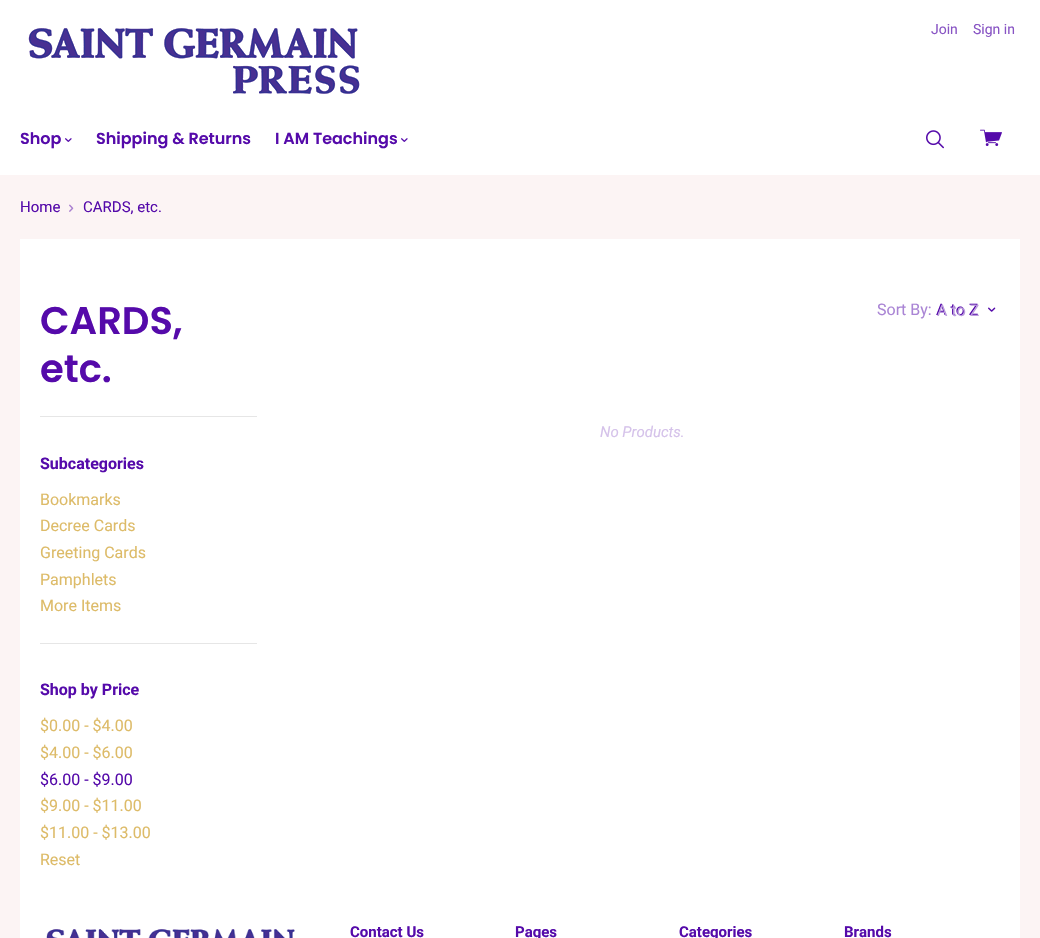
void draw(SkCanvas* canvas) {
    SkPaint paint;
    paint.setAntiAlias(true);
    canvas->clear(0xFFFCF4F4);
    paint.setColor(0xFFFFFFFF);
    canvas->drawRect(SkRect::MakeXYWH(0, 0, 1040, 175), paint);
    SkFont font1(fontMgr->matchFamilyStyle("Roboto", SkFontStyle::Normal()), 14);
    font1.setSubpixel(true);
    paint.setColor(0xFF8854C4);
    canvas->drawString("Join", 931, 34, font1, paint);
    canvas->drawString("Sign in", 973, 34, font1, paint);
    SkFont font2(fontMgr->matchFamilyStyle("Poppins", SkFontStyle(600, SkFontStyle::kNormal_Width, SkFontStyle::kUpright_Slant)), 16);
    font2.setSubpixel(true);
    paint.setColor(0xFF550AAA);
    canvas->drawString("Shop", 20, 144, font2, paint);
    canvas->drawImageRect(SkImages::DeferredFromEncodedData(SkData::MakeFromFileName("img1.png")), SkRect::MakeXYWH(65, 138, 7, 4), SkSamplingOptions());
    canvas->drawString("Shipping & Returns", 96, 144, font2, paint);
    canvas->drawString("I AM Teachings", 275, 144, font2, paint);
    canvas->drawImageRect(SkImages::DeferredFromEncodedData(SkData::MakeFromFileName("img1.png")), SkRect::MakeXYWH(401, 138, 7, 4), SkSamplingOptions());
    canvas->drawImageRect(SkImages::DeferredFromEncodedData(SkData::MakeFromFileName("img2.png")), SkRect::MakeXYWH(28, 28, 332, 66), SkSamplingOptions());
    canvas->drawImageRect(SkImages::DeferredFromEncodedData(SkData::MakeFromFileName("img3.png")), SkRect::MakeXYWH(980, 129, 22, 17), SkSamplingOptions());
    canvas->drawImageRect(SkImages::DeferredFromEncodedData(SkData::MakeFromFileName("img4.png")), SkRect::MakeXYWH(926, 130, 18, 19), SkSamplingOptions());
    SkFont font3(fontMgr->matchFamilyStyle("Roboto", SkFontStyle::Normal()), 15);
    font3.setSubpixel(true);
    canvas->drawString("Home", 20, 212, font3, paint);
    canvas->drawImageRect(SkImages::DeferredFromEncodedData(SkData::MakeFromFileName("img5.png")), SkRect::MakeXYWH(69, 204, 5, 8), SkSamplingOptions());
    canvas->drawString("CARDS, etc.", 83, 212, font3, paint);
    paint.setColor(0xFFFFFFFF);
    canvas->drawRect(SkRect::MakeXYWH(20, 239, 1000, 699), paint);
    SkFont font4(fontMgr->matchFamilyStyle("Poppins", SkFontStyle(600, SkFontStyle::kNormal_Width, SkFontStyle::kUpright_Slant)), 38.5f);
    font4.setSubpixel(true);
    paint.setColor(0xFF550AAA);
    canvas->drawString("CARDS,", 40, 334, font4, paint);
    canvas->drawString("etc.", 40, 382, font4, paint);
    paint.setColor(0xFFE6E6E6);
    canvas->drawRect(SkRect::MakeXYWH(40, 416, 217, 1), paint);
    SkFont font5(fontMgr->matchFamilyStyle("Roboto", SkFontStyle::Bold()), 16);
    font5.setSubpixel(true);
    paint.setColor(0xFF550AAA);
    canvas->drawString("Subcategories", 40, 469, font5, paint);
    SkFont font6(fontMgr->matchFamilyStyle("Roboto", SkFontStyle::Normal()), 16);
    font6.setSubpixel(true);
    paint.setColor(0xFFDDBB68);
    canvas->drawString("Bookmarks", 40, 505, font6, paint);
    canvas->drawString("Decree Cards", 40, 531, font6, paint);
    canvas->drawString("Greeting Cards", 40, 558, font6, paint);
    canvas->drawString("Pamphlets", 40, 585, font6, paint);
    canvas->drawString("More Items", 40, 611, font6, paint);
    paint.setColor(0xFFE6E6E6);
    canvas->drawRect(SkRect::MakeXYWH(40, 643, 217, 1), paint);
    paint.setColor(0xFF550AAA);
    canvas->drawString("Shop by Price", 40, 695, font5, paint);
    paint.setColor(0xFFDDBB68);
    canvas->drawString("$0.00 - $4.00", 40, 731, font6, paint);
    canvas->drawString("$4.00 - $6.00", 40, 758, font6, paint);
    paint.setColor(0xFF550AAA);
    canvas->drawString("$6.00 - $9.00", 40, 785, font6, paint);
    paint.setColor(0xFFDDBB68);
    canvas->drawString("$9.00 - $11.00", 40, 811, font6, paint);
    canvas->drawString("$11.00 - $13.00", 40, 838, font6, paint);
    canvas->drawString("Reset", 40, 865, font6, paint);
    paint.setColor(0xFFAA85D5);
    canvas->drawString("Sort By:", 877, 315, font6, paint);
    paint.setColor(0xFF550AAA);
    canvas->drawString("A to Z", 936, 315, font6, paint);
    paint.setColor(0xFFBB9CDD);
    canvas->drawString("A to Z", 937, 316, font6, paint);
    canvas->drawImageRect(SkImages::DeferredFromEncodedData(SkData::MakeFromFileName("img6.png")), SkRect::MakeXYWH(988, 307, 8, 5), SkSamplingOptions());
    SkFont font7(fontMgr->matchFamilyStyle("Roboto", SkFontStyle::Italic()), 15);
    font7.setSubpixel(true);
    paint.setColor(0xFFD5C2EA);
    canvas->drawString("No Products.", 600, 437, font7, paint);
    canvas->drawImageRect(SkImages::DeferredFromEncodedData(SkData::MakeFromFileName("img7.png")), SkRect::MakeXYWH(46, 929, 249, 9), SkSamplingOptions());
    SkFont font8(fontMgr->matchFamilyStyle("Roboto", SkFontStyle::Bold()), 15);
    font8.setSubpixel(true);
    paint.setColor(0xFF550AAA);
    canvas->drawString("Contact Us", 350, 937, font8, paint);
    canvas->drawString("Pages", 515, 937, font8, paint);
    canvas->drawString("Categories", 679, 937, font8, paint);
    canvas->drawString("Brands", 844, 937, font8, paint);
}
